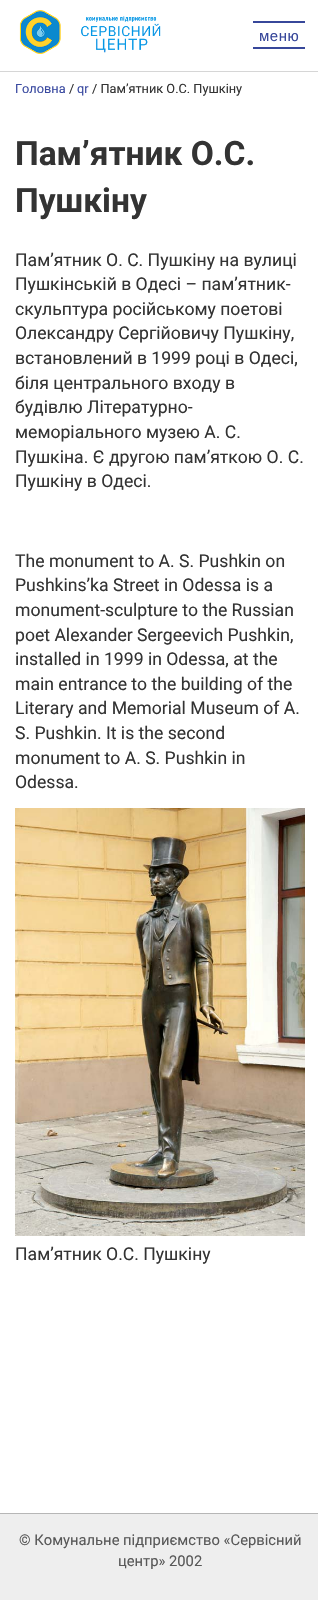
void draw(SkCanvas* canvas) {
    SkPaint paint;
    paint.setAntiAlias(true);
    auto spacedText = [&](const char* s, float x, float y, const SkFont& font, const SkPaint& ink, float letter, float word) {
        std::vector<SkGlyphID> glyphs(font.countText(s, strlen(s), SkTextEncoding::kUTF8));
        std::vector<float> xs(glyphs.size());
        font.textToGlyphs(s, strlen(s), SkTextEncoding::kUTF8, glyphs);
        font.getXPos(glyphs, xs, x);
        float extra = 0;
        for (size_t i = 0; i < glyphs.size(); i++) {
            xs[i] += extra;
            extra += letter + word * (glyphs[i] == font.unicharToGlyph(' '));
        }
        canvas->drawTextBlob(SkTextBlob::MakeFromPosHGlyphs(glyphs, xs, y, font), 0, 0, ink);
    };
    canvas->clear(0xFFFFFFFF);
    paint.setColor(0xFFD6D6D6);
    canvas->drawRect(SkRect::MakeXYWH(0, 71, 318, 1), paint);
    canvas->drawImageRect(SkImages::DeferredFromEncodedData(SkData::MakeFromFileName("img1.png")), SkRect::MakeXYWH(19, 10, 142, 44), SkSamplingOptions());
    paint.setColor(0xFF37479A);
    canvas->drawRect(SkRect::MakeXYWH(253, 21, 52, 2), paint);
    canvas->drawRect(SkRect::MakeXYWH(253, 47, 52, 2), paint);
    SkFont font1(fontMgr->matchFamilyStyle("Liberation Sans", SkFontStyle::Normal()), 15);
    font1.setSubpixel(true);
    spacedText("меню", 259, 41, font1, paint, 0.5f, 0);
    SkFont font2(fontMgr->matchFamilyStyle("Roboto", SkFontStyle::Normal()), 12.75f);
    font2.setSubpixel(true);
    paint.setColor(0xFF3949A0);
    canvas->drawString("Головна", 15, 93, font2, paint);
    paint.setColor(0xFF333333);
    canvas->drawString("/", 69, 93, font2, paint);
    paint.setColor(0xFF3949A0);
    canvas->drawString("qr", 77, 93, font2, paint);
    paint.setColor(0xFF333333);
    canvas->drawString("/ Пам’ятник О.С. Пушкіну", 92, 93, font2, paint);
    SkFont font3(fontMgr->matchFamilyStyle("Roboto", SkFontStyle::Bold()), 33.5f);
    font3.setSubpixel(true);
    canvas->drawString("Пам’ятник О.С.", 15, 165, font3, paint);
    canvas->drawString("Пушкіну", 15, 212, font3, paint);
    SkFont font4(fontMgr->matchFamilyStyle("Roboto", SkFontStyle::Normal()), 17.6f);
    font4.setSubpixel(true);
    canvas->drawString("Пам’ятник О. С. Пушкіну на вулиці", 15, 266, font4, paint);
    canvas->drawString("Пушкінській в Одесі – пам’ятник-", 15, 290, font4, paint);
    canvas->drawString("скульптура російському поетові", 15, 315, font4, paint);
    canvas->drawString("Олександру Сергійовичу Пушкіну,", 15, 339, font4, paint);
    canvas->drawString("встановлений в 1999 році в Одесі,", 15, 364, font4, paint);
    canvas->drawString("біля центрального входу в", 15, 389, font4, paint);
    canvas->drawString("будівлю Літературно-", 15, 413, font4, paint);
    canvas->drawString("меморіального музею А. С.", 15, 438, font4, paint);
    canvas->drawString("Пушкіна. Є другою пам’яткою О. С.", 15, 463, font4, paint);
    canvas->drawString("Пушкіну в Одесі.", 15, 487, font4, paint);
    canvas->drawString("The monument to A. S. Pushkin on", 15, 567, font4, paint);
    canvas->drawString("Pushkins’ka Street in Odessa is a", 15, 591, font4, paint);
    canvas->drawString("monument-sculpture to the Russian", 15, 616, font4, paint);
    canvas->drawString("poet Alexander Sergeevich Pushkin,", 15, 641, font4, paint);
    canvas->drawString("installed in 1999 in Odessa, at the", 15, 665, font4, paint);
    canvas->drawString("main entrance to the building of the", 15, 690, font4, paint);
    canvas->drawString("Literary and Memorial Museum of A.", 15, 714, font4, paint);
    canvas->drawString("S. Pushkin. It is the second", 15, 739, font4, paint);
    canvas->drawString("monument to A. S. Pushkin in", 15, 764, font4, paint);
    canvas->drawString("Odessa.", 15, 788, font4, paint);
    canvas->drawImageRect(SkImages::DeferredFromEncodedData(SkData::MakeFromFileName("img2.png")), SkRect::MakeXYWH(15, 808, 290, 428), SkSamplingOptions());
    canvas->drawString("Пам’ятник О.С. Пушкіну", 15, 1260, font4, paint);
    paint.setColor(0xFFEEEEEE);
    canvas->drawRect(SkRect::MakeXYWH(0, 1514, 318, 86), paint);
    paint.setColor(0xFFB6B6B6);
    canvas->drawRect(SkRect::MakeXYWH(0, 1513, 318, 1), paint);
    SkFont font5(fontMgr->matchFamilyStyle("Roboto", SkFontStyle::Normal()), 14.75f);
    font5.setSubpixel(true);
    paint.setColor(0xFF585858);
    canvas->drawString("© Комунальне підприємство «Сервісний", 19, 1545, font5, paint);
    canvas->drawString("центр» 2002", 118, 1566, font5, paint);
}
